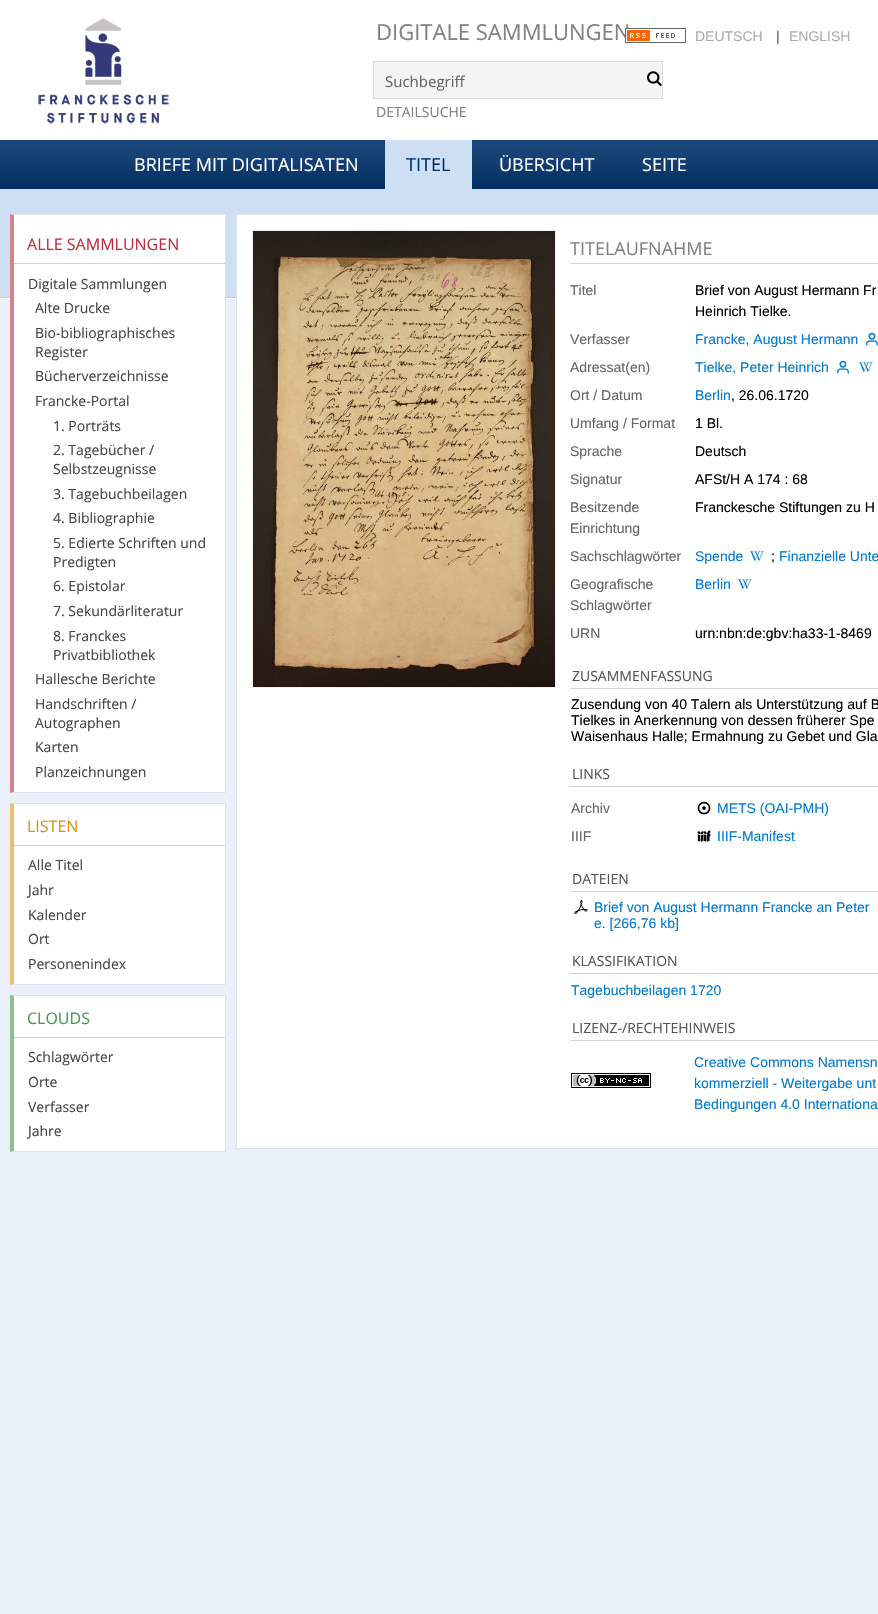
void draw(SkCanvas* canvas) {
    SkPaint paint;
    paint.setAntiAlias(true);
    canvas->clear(0xFFFFFFFF);
    canvas->drawImageRect(SkImages::DeferredFromEncodedData(SkData::MakeFromFileName("img1.png")), SkRect::MakeXYWH(38, 17, 131, 107), SkSamplingOptions());
    SkFont font1(fontMgr->matchFamilyStyle("Open Sans", SkFontStyle::Normal()), 22);
    font1.setSubpixel(true);
    paint.setColor(0xFF818182);
    canvas->drawString("DIGITALE SAMMLUNGEN", 376, 40, font1, paint);
    canvas->drawImageRect(SkImages::DeferredFromEncodedData(SkData::MakeFromFileName("img2.png")), SkRect::MakeXYWH(625, 28, 61, 15), SkSamplingOptions());
    SkFont font2(fontMgr->matchFamilyStyle("Liberation Sans", SkFontStyle::Normal()), 14);
    font2.setSubpixel(true);
    paint.setColor(0xFFAEADAD);
    canvas->drawString("DEUTSCH", 695, 41, font2, paint);
    paint.setColor(0xFF555555);
    canvas->drawString("|", 776, 41, font2, paint);
    paint.setColor(0xFFAEADAD);
    canvas->drawString("ENGLISH", 789, 41, font2, paint);
    paint.setColor(0xFFF4F4F4);
    canvas->drawRect(SkRect::MakeXYWH(373.5f, 61.5f, 289, 37), paint);
    paint.setStyle(SkPaint::kStroke_Style);
    paint.setStrokeWidth(1);
    paint.setColor(0xFFDBDBDB);
    canvas->drawRect(SkRect::MakeXYWH(373.5f, 61.5f, 289, 37), paint);
    SkFont font3(fontMgr->matchFamilyStyle("Open Sans", SkFontStyle::Normal()), 15);
    font3.setSubpixel(true);
    paint.setStyle(SkPaint::kFill_Style);
    paint.setColor(0xFF646464);
    canvas->drawString("Suchbegriff", 385, 87, font3, paint);
    canvas->drawImageRect(SkImages::DeferredFromEncodedData(SkData::MakeFromFileName("img3.png")), SkRect::MakeXYWH(647, 71, 15, 16), SkSamplingOptions());
    SkFont font4(fontMgr->matchFamilyStyle("Open Sans", SkFontStyle::Normal()), 14);
    font4.setSubpixel(true);
    paint.setColor(0xFF818182);
    canvas->drawString("DETAILSUCHE", 376, 117, font4, paint);
    canvas->drawImageRect(SkImages::DeferredFromEncodedData(SkData::MakeFromFileName("img4.png")), SkRect::MakeXYWH(0, 140, 878, 49), SkSamplingOptions());
    SkFont font5(fontMgr->matchFamilyStyle("Open Sans", SkFontStyle::Normal()), 18);
    font5.setSubpixel(true);
    paint.setColor(0xFFFFFFFF);
    canvas->drawString("BRIEFE MIT DIGITALISATEN", 134, 171, font5, paint);
    paint.setColor(0xFFCEDFF4);
    canvas->drawRect(SkRect::MakeXYWH(385, 140, 87, 49), paint);
    paint.setColor(0xFF003069);
    canvas->drawString("TITEL", 406, 171, font5, paint);
    paint.setColor(0xFFFFFFFF);
    canvas->drawString("ÜBERSICHT", 499, 171, font5, paint);
    canvas->drawString("SEITE", 642, 171, font5, paint);
    paint.setColor(0xFFE9F0FA);
    canvas->drawRect(SkRect::MakeXYWH(0, 299, 878, 1315), paint);
    canvas->drawImageRect(SkImages::DeferredFromEncodedData(SkData::MakeFromFileName("img5.png")), SkRect::MakeXYWH(0, 189, 878, 110), SkSamplingOptions());
    paint.setColor(0xFFFFFFFF);
    canvas->drawRect(SkRect::MakeXYWH(10, 214, 215, 579), paint);
    paint.setColor(0xFFDDE4ED);
    canvas->drawPath(SkPathBuilder().moveTo(10, 214).lineTo(226, 214).lineTo(225, 215).lineTo(14, 215).close().detach(), paint);
    canvas->drawRect(SkRect::MakeXYWH(225, 214, 1, 579), paint);
    canvas->drawPath(SkPathBuilder().moveTo(226, 793).lineTo(10, 793).lineTo(14, 792).lineTo(225, 792).close().detach(), paint);
    paint.setColor(0x99C12B3D);
    canvas->drawPath(SkPathBuilder().moveTo(10, 793).lineTo(10, 214).lineTo(14, 215).lineTo(14, 792).close().detach(), paint);
    paint.setColor(0xFFD3D1D1);
    canvas->drawRect(SkRect::MakeXYWH(14, 263, 211, 1), paint);
    SkFont font6(fontMgr->matchFamilyStyle("Open Sans", SkFontStyle::Normal()), 16);
    font6.setSubpixel(true);
    paint.setColor(0xFFC12B3D);
    canvas->drawString("ALLE SAMMLUNGEN", 27, 250, font6, paint);
    paint.setColor(0xFF444444);
    canvas->drawString("Digitale Sammlungen", 28, 289, font4, paint);
    canvas->drawString("Alte Drucke", 35, 313, font4, paint);
    canvas->drawString("Bio-bibliographisches", 35, 338, font4, paint);
    canvas->drawString("Register", 35, 357, font4, paint);
    canvas->drawString("Bücherverzeichnisse", 35, 381, font4, paint);
    canvas->drawString("Francke-Portal", 35, 406, font4, paint);
    canvas->drawString("1. Porträts", 53, 431, font4, paint);
    canvas->drawString("2. Tagebücher /", 53, 455, font4, paint);
    canvas->drawString("Selbstzeugnisse", 53, 474, font4, paint);
    canvas->drawString("3. Tagebuchbeilagen", 53, 499, font4, paint);
    canvas->drawString("4. Bibliographie", 53, 523, font4, paint);
    canvas->drawString("5. Edierte Schriften und", 53, 548, font4, paint);
    canvas->drawString("Predigten", 53, 567, font4, paint);
    canvas->drawString("6. Epistolar", 53, 591, font4, paint);
    canvas->drawString("7. Sekundärliteratur", 53, 616, font4, paint);
    canvas->drawString("8. Franckes", 53, 641, font4, paint);
    canvas->drawString("Privatbibliothek", 53, 660, font4, paint);
    canvas->drawString("Hallesche Berichte", 35, 684, font4, paint);
    canvas->drawString("Handschriften /", 35, 709, font4, paint);
    canvas->drawString("Autographen", 35, 728, font4, paint);
    canvas->drawString("Karten", 35, 752, font4, paint);
    canvas->drawString("Planzeichnungen", 35, 777, font4, paint);
    paint.setColor(0xFFFFFFFF);
    canvas->drawRect(SkRect::MakeXYWH(10, 803, 215, 182), paint);
    paint.setColor(0xFFDDE4ED);
    canvas->drawPath(SkPathBuilder().moveTo(10, 803).lineTo(226, 803).lineTo(225, 804).lineTo(14, 804).close().detach(), paint);
    canvas->drawRect(SkRect::MakeXYWH(225, 803, 1, 182), paint);
    canvas->drawPath(SkPathBuilder().moveTo(226, 985).lineTo(10, 985).lineTo(14, 984).lineTo(225, 984).close().detach(), paint);
    paint.setColor(0x99DE9119);
    canvas->drawPath(SkPathBuilder().moveTo(10, 985).lineTo(10, 803).lineTo(14, 804).lineTo(14, 984).close().detach(), paint);
    paint.setColor(0xFFD3D1D1);
    canvas->drawRect(SkRect::MakeXYWH(14, 845, 211, 1), paint);
    paint.setColor(0xFFDE9119);
    canvas->drawString("LISTEN", 27, 832, font6, paint);
    paint.setColor(0xFF444444);
    canvas->drawString("Alle Titel", 28, 870, font4, paint);
    canvas->drawString("Jahr", 28, 895, font4, paint);
    canvas->drawString("Kalender", 28, 920, font4, paint);
    canvas->drawString("Ort", 28, 944, font4, paint);
    canvas->drawString("Personenindex", 28, 969, font4, paint);
    paint.setColor(0xFFFFFFFF);
    canvas->drawRect(SkRect::MakeXYWH(10, 995, 215, 157), paint);
    paint.setColor(0xFFDDE4ED);
    canvas->drawPath(SkPathBuilder().moveTo(10, 995).lineTo(226, 995).lineTo(225, 996).lineTo(14, 996).close().detach(), paint);
    canvas->drawRect(SkRect::MakeXYWH(225, 995, 1, 157), paint);
    canvas->drawPath(SkPathBuilder().moveTo(226, 1152).lineTo(10, 1152).lineTo(14, 1151).lineTo(225, 1151).close().detach(), paint);
    paint.setColor(0x99409A48);
    canvas->drawPath(SkPathBuilder().moveTo(10, 1152).lineTo(10, 995).lineTo(14, 996).lineTo(14, 1151).close().detach(), paint);
    paint.setColor(0xFFD3D1D1);
    canvas->drawRect(SkRect::MakeXYWH(14, 1037, 211, 1), paint);
    paint.setColor(0xFF409A48);
    canvas->drawString("CLOUDS", 27, 1024, font6, paint);
    paint.setColor(0xFF444444);
    canvas->drawString("Schlagwörter", 28, 1062, font4, paint);
    canvas->drawString("Orte", 28, 1087, font4, paint);
    canvas->drawString("Verfasser", 28, 1112, font4, paint);
    canvas->drawString("Jahre", 28, 1136, font4, paint);
    paint.setColor(0xFFFFFFFF);
    canvas->drawRect(SkRect::MakeXYWH(236.5f, 214.5f, 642, 934), paint);
    paint.setStyle(SkPaint::kStroke_Style);
    paint.setColor(0xFFDDE4ED);
    canvas->drawRect(SkRect::MakeXYWH(236.5f, 214.5f, 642, 934), paint);
    paint.setColor(0xFFEEEEEC);
    canvas->drawRect(SkRect::MakeXYWH(252.5f, 230.5f, 303, 457), paint);
    canvas->drawImageRect(SkImages::DeferredFromEncodedData(SkData::MakeFromFileName("img6.png")), SkRect::MakeXYWH(253, 231, 302, 456), SkSamplingOptions());
    paint.setStyle(SkPaint::kFill_Style);
    paint.setColor(0xFFD3D1D1);
    canvas->drawRect(SkRect::MakeXYWH(570, 263, 308, 1), paint);
    paint.setColor(0xFF818182);
    canvas->drawString("TITELAUFNAHME", 570, 255, font5, paint);
    paint.setColor(0xFF646464);
    canvas->drawString("Titel", 570, 295, font2, paint);
    paint.setColor(0xFF000000);
    canvas->drawString("Brief von August Hermann Fr", 695, 295, font2, paint);
    canvas->drawString("Heinrich Tielke.", 695, 316, font2, paint);
    paint.setColor(0xFF646464);
    canvas->drawString("Verfasser", 570, 344, font2, paint);
    paint.setColor(0xFF007AD1);
    canvas->drawString("Francke, August Hermann", 695, 344, font2, paint);
    canvas->drawImageRect(SkImages::DeferredFromEncodedData(SkData::MakeFromFileName("img7.png")), SkRect::MakeXYWH(866, 332, 12, 14), SkSamplingOptions());
    paint.setColor(0xFF646464);
    canvas->drawString("Adressat(en)", 570, 372, font2, paint);
    paint.setColor(0xFF007AD1);
    canvas->drawString("Tielke, Peter Heinrich", 695, 372, font2, paint);
    canvas->drawImageRect(SkImages::DeferredFromEncodedData(SkData::MakeFromFileName("img7.png")), SkRect::MakeXYWH(837, 360, 12, 14), SkSamplingOptions());
    canvas->drawImageRect(SkImages::DeferredFromEncodedData(SkData::MakeFromFileName("img8.png")), SkRect::MakeXYWH(859, 362, 14, 10), SkSamplingOptions());
    paint.setColor(0xFF646464);
    canvas->drawString("Ort / Datum", 570, 400, font2, paint);
    paint.setColor(0xFF007AD1);
    canvas->drawString("Berlin", 695, 400, font2, paint);
    paint.setColor(0xFF000000);
    canvas->drawString(", 26.06.1720", 731, 400, font2, paint);
    paint.setColor(0xFF646464);
    canvas->drawString("Umfang / Format", 570, 428, font2, paint);
    paint.setColor(0xFF000000);
    canvas->drawString("1 Bl.", 695, 428, font2, paint);
    paint.setColor(0xFF646464);
    canvas->drawString("Sprache", 570, 456, font2, paint);
    paint.setColor(0xFF000000);
    canvas->drawString("Deutsch", 695, 456, font2, paint);
    paint.setColor(0xFF646464);
    canvas->drawString("Signatur", 570, 484, font2, paint);
    paint.setColor(0xFF000000);
    canvas->drawString("AFSt/H A 174 : 68", 695, 484, font2, paint);
    paint.setColor(0xFF646464);
    canvas->drawString("Besitzende", 570, 512, font2, paint);
    canvas->drawString("Einrichtung", 570, 533, font2, paint);
    paint.setColor(0xFF000000);
    canvas->drawString("Franckesche Stiftungen zu H", 695, 512, font2, paint);
    paint.setColor(0xFF646464);
    canvas->drawString("Sachschlagwörter", 570, 561, font2, paint);
    paint.setColor(0xFF007AD1);
    canvas->drawString("Spende", 695, 561, font2, paint);
    canvas->drawImageRect(SkImages::DeferredFromEncodedData(SkData::MakeFromFileName("img8.png")), SkRect::MakeXYWH(750, 551, 14, 10), SkSamplingOptions());
    paint.setColor(0xFF000000);
    canvas->drawString(";", 771, 561, font2, paint);
    paint.setColor(0xFF007AD1);
    canvas->drawString("Finanzielle Unte", 779, 561, font2, paint);
    paint.setColor(0xFF646464);
    canvas->drawString("Geografische", 570, 589, font2, paint);
    canvas->drawString("Schlagwörter", 570, 610, font2, paint);
    paint.setColor(0xFF007AD1);
    canvas->drawString("Berlin", 695, 589, font2, paint);
    canvas->drawImageRect(SkImages::DeferredFromEncodedData(SkData::MakeFromFileName("img8.png")), SkRect::MakeXYWH(738, 579, 14, 10), SkSamplingOptions());
    paint.setColor(0xFF646464);
    canvas->drawString("URN", 570, 638, font2, paint);
    paint.setColor(0xFF000000);
    canvas->drawString("urn:nbn:de:gbv:ha33-1-8469", 695, 638, font2, paint);
    paint.setColor(0xFFD3D1D1);
    canvas->drawRect(SkRect::MakeXYWH(570, 688, 308, 1), paint);
    paint.setColor(0xFF555555);
    canvas->drawString("ZUSAMMENFASSUNG", 572, 681, font4, paint);
    paint.setColor(0xFF000000);
    canvas->drawString("Zusendung von 40 Talern als Unterstützung auf B", 571, 709, font2, paint);
    canvas->drawString("Tielkes in Anerkennung von dessen früherer Spe", 571, 725, font2, paint);
    canvas->drawString("Waisenhaus Halle; Ermahnung zu Gebet und Gla", 571, 741, font2, paint);
    paint.setColor(0xFFD3D1D1);
    canvas->drawRect(SkRect::MakeXYWH(570, 786, 308, 1), paint);
    paint.setColor(0xFF555555);
    canvas->drawString("LINKS", 572, 779, font4, paint);
    paint.setColor(0xFF646464);
    canvas->drawString("Archiv", 571, 813, font2, paint);
    canvas->drawImageRect(SkImages::DeferredFromEncodedData(SkData::MakeFromFileName("img9.png")), SkRect::MakeXYWH(697, 801, 14, 14), SkSamplingOptions());
    paint.setColor(0xFF007AD1);
    canvas->drawString("METS (OAI-PMH)", 717, 813, font2, paint);
    paint.setColor(0xFF646464);
    canvas->drawString("IIIF", 571, 841, font2, paint);
    canvas->drawImageRect(SkImages::DeferredFromEncodedData(SkData::MakeFromFileName("img10.png")), SkRect::MakeXYWH(697, 830, 14, 12), SkSamplingOptions());
    paint.setColor(0xFF007AD1);
    canvas->drawString("IIIF-Manifest", 717, 841, font2, paint);
    paint.setColor(0xFFD3D1D1);
    canvas->drawRect(SkRect::MakeXYWH(570, 891, 308, 1), paint);
    paint.setColor(0xFF555555);
    canvas->drawString("DATEIEN", 572, 884, font4, paint);
    canvas->drawImageRect(SkImages::DeferredFromEncodedData(SkData::MakeFromFileName("img11.png")), SkRect::MakeXYWH(574, 900, 14, 15), SkSamplingOptions());
    paint.setColor(0xFF007AD1);
    canvas->drawString("Brief von August Hermann Francke an Peter", 594, 912, font2, paint);
    canvas->drawString("e. [266,76 kb]", 594, 928, font2, paint);
    paint.setColor(0xFFD3D1D1);
    canvas->drawRect(SkRect::MakeXYWH(570, 973, 308, 1), paint);
    paint.setColor(0xFF555555);
    canvas->drawString("KLASSIFIKATION", 572, 966, font4, paint);
    paint.setColor(0xFF007AD1);
    canvas->drawString("Tagebuchbeilagen 1720", 571, 995, font2, paint);
    paint.setColor(0xFFD3D1D1);
    canvas->drawRect(SkRect::MakeXYWH(570, 1040, 308, 1), paint);
    paint.setColor(0xFF555555);
    canvas->drawString("LIZENZ-/RECHTEHINWEIS", 572, 1033, font4, paint);
    canvas->drawImageRect(SkImages::DeferredFromEncodedData(SkData::MakeFromFileName("img12.png")), SkRect::MakeXYWH(571, 1073, 80, 15), SkSamplingOptions());
    paint.setColor(0xFF007AD1);
    canvas->drawString("Creative Commons Namensn", 694, 1067, font2, paint);
    canvas->drawString("kommerziell - Weitergabe unt", 694, 1088, font2, paint);
    canvas->drawString("Bedingungen 4.0 Internationa", 694, 1109, font2, paint);
}
